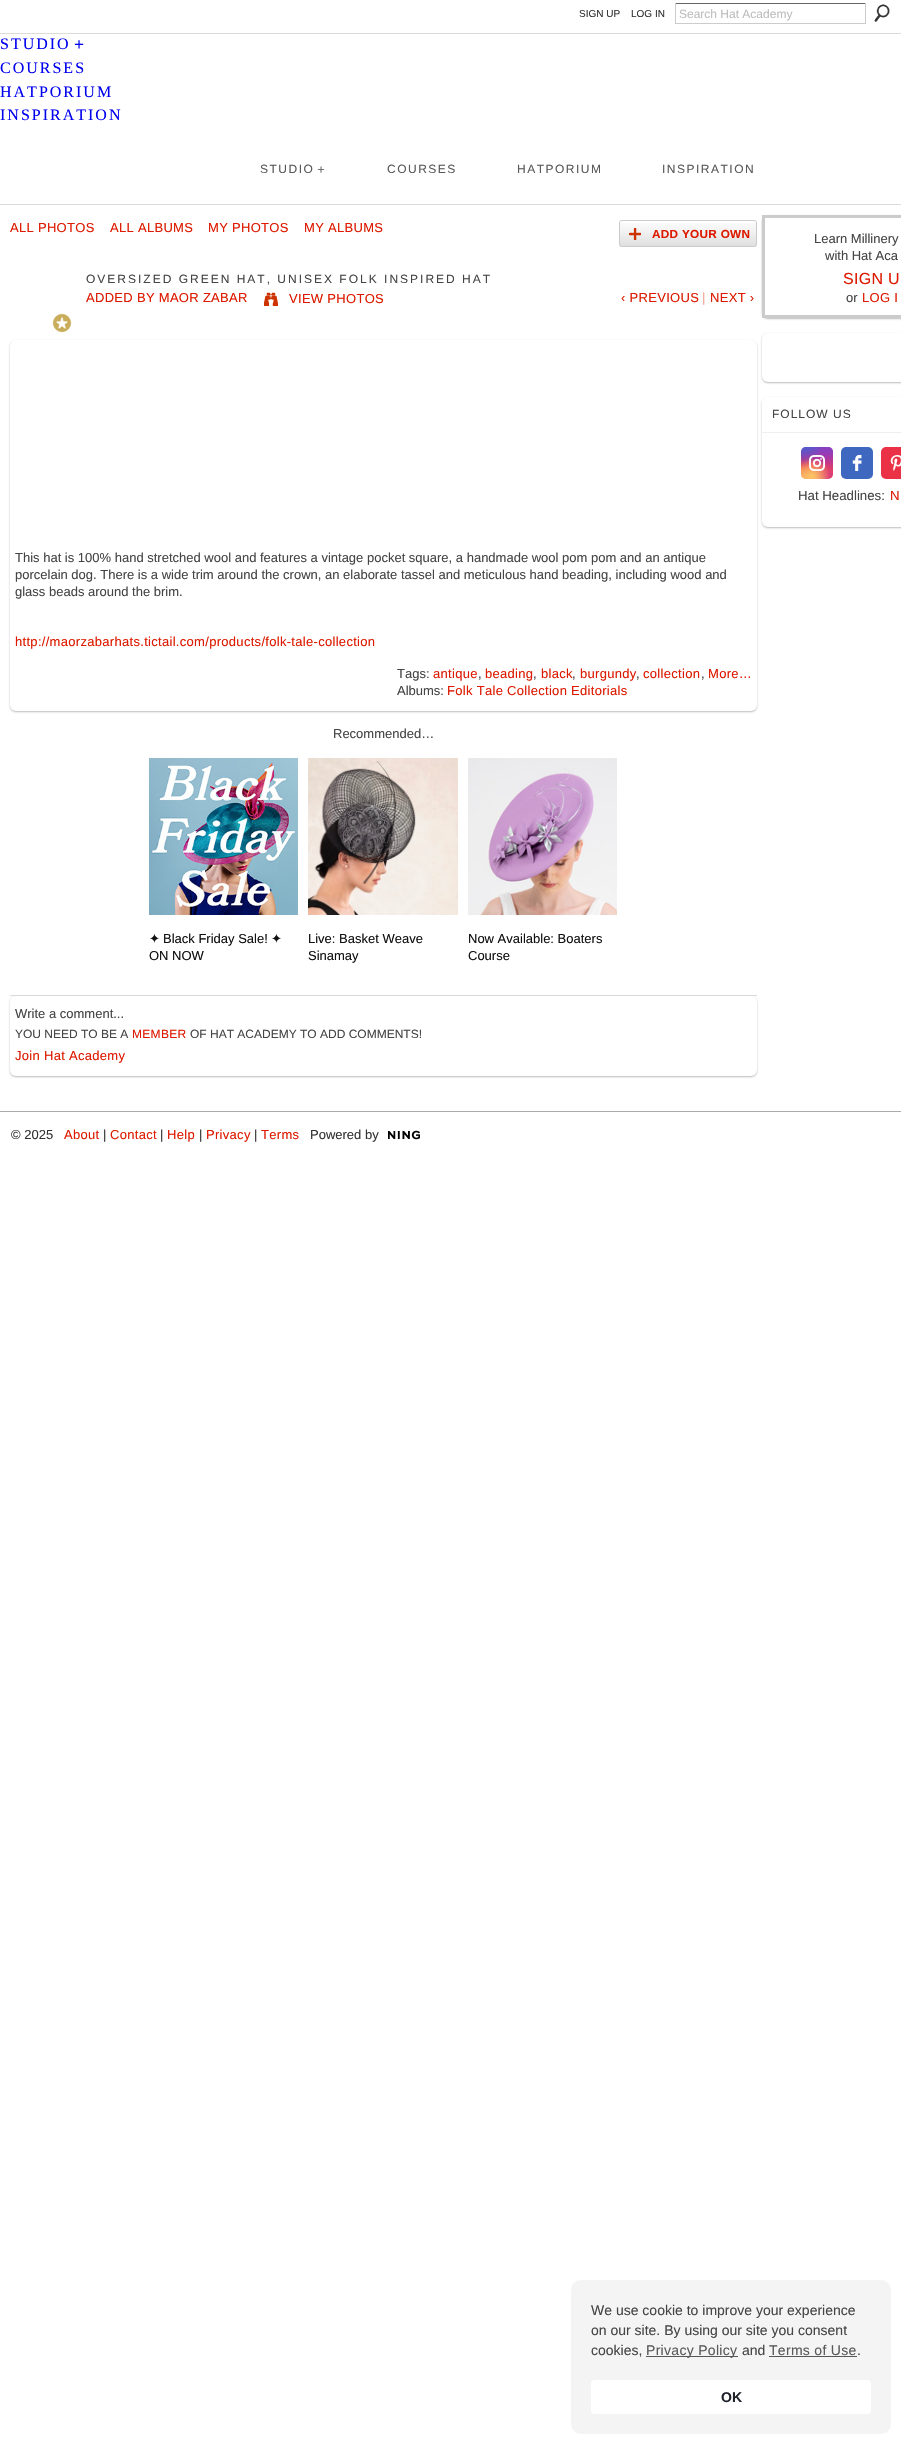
void draw(SkCanvas* canvas) {
    SkPaint paint;
    paint.setAntiAlias(true);
    auto spacedText = [&](const char* s, float x, float y, const SkFont& font, const SkPaint& ink, float letter, float word) {
        std::vector<SkGlyphID> glyphs(font.countText(s, strlen(s), SkTextEncoding::kUTF8));
        std::vector<float> xs(glyphs.size());
        font.textToGlyphs(s, strlen(s), SkTextEncoding::kUTF8, glyphs);
        font.getXPos(glyphs, xs, x);
        float extra = 0;
        for (size_t i = 0; i < glyphs.size(); i++) {
            xs[i] += extra;
            extra += letter + word * (glyphs[i] == font.unicharToGlyph(' '));
        }
        canvas->drawTextBlob(SkTextBlob::MakeFromPosHGlyphs(glyphs, xs, y, font), 0, 0, ink);
    };
    canvas->clear(0xFFFFFFFF);
    SkFont font1(fontMgr->matchFamilyStyle("Liberation Sans", SkFontStyle::Normal()), 10);
    font1.setSubpixel(true);
    paint.setColor(0xFF333333);
    canvas->drawString("SIGN UP", 579, 17, font1, paint);
    canvas->drawString("LOG IN", 631, 17, font1, paint);
    paint.setColor(0xFF666666);
    canvas->drawRect(SkRect::MakeXYWH(675, 3, 191, 1), paint);
    paint.setColor(0xFFCCCCCC);
    canvas->drawRect(SkRect::MakeXYWH(865, 3, 1, 21), paint);
    canvas->drawRect(SkRect::MakeXYWH(675, 23, 191, 1), paint);
    canvas->drawRect(SkRect::MakeXYWH(675, 3, 1, 21), paint);
    SkFont font2(fontMgr->matchFamilyStyle("Liberation Sans", SkFontStyle::Normal()), 12);
    font2.setSubpixel(true);
    paint.setColor(0xFFBDBDBD);
    canvas->drawString("Search Hat Academy", 679, 18, font2, paint);
    canvas->drawImageRect(SkImages::DeferredFromEncodedData(SkData::MakeFromFileName("img1.png")), SkRect::MakeXYWH(874, 4, 16, 18), SkSamplingOptions());
    paint.setColor(0xFFDBDBDB);
    canvas->drawRect(SkRect::MakeXYWH(0, 33, 901, 1), paint);
    SkFont font3(fontMgr->matchFamilyStyle("Liberation Serif", SkFontStyle::Normal()), 16);
    font3.setSubpixel(true);
    paint.setColor(0xFF0000EE);
    spacedText("STUDIO", 0, 49, font3, paint, 2, 0);
    SkFont font4(fontMgr->matchFamilyStyle("WenQuanYi Zen Hei", SkFontStyle(500, SkFontStyle::kNormal_Width, SkFontStyle::kUpright_Slant)), 16);
    font4.setSubpixel(true);
    spacedText("＋", 71, 49, font4, paint, 2, 0);
    spacedText("COURSES", 0, 73, font3, paint, 2, 0);
    spacedText("HATPORIUM", 0, 97, font3, paint, 2, 0);
    spacedText("INSPIRATION", 0, 120, font3, paint, 2, 0);
    paint.setColor(0xFF595959);
    spacedText("STUDIO", 260, 173, font2, paint, 1.5f, 0);
    SkFont font5(fontMgr->matchFamilyStyle("WenQuanYi Zen Hei", SkFontStyle(500, SkFontStyle::kNormal_Width, SkFontStyle::kUpright_Slant)), 12);
    font5.setSubpixel(true);
    spacedText("＋", 315, 173, font5, paint, 1.5f, 0);
    spacedText("COURSES", 387, 173, font2, paint, 1.5f, 0);
    spacedText("HATPORIUM", 517, 173, font2, paint, 1.5f, 0);
    spacedText("INSPIRATION", 662, 173, font2, paint, 1.5f, 0);
    paint.setColor(0xFFDBDBDB);
    canvas->drawRect(SkRect::MakeXYWH(0, 204, 901, 1), paint);
    SkFont font6(fontMgr->matchFamilyStyle("Liberation Sans", SkFontStyle::Normal()), 13);
    font6.setSubpixel(true);
    paint.setColor(0xFFDD1A00);
    spacedText("ALL PHOTOS", 10, 232, font6, paint, 0.3f, 0);
    spacedText("ALL ALBUMS", 110, 232, font6, paint, 0.3f, 0);
    spacedText("MY PHOTOS", 208, 232, font6, paint, 0.3f, 0);
    spacedText("MY ALBUMS", 304, 232, font6, paint, 0.3f, 0);
    canvas->drawImageRect(SkImages::DeferredFromEncodedData(SkData::MakeFromFileName("img2.png")), SkRect::MakeXYWH(619, 223, 138, 24), SkSamplingOptions());
    paint.setStyle(SkPaint::kStroke_Style);
    paint.setStrokeWidth(1);
    paint.setColor(0xFFCBCBCB);
    canvas->drawRoundRect(SkRect::MakeXYWH(619.5f, 220.5f, 137, 26), 2.5f, 2.5f, paint);
    canvas->drawImageRect(SkImages::DeferredFromEncodedData(SkData::MakeFromFileName("img3.png")), SkRect::MakeXYWH(629, 228, 12, 12), SkSamplingOptions());
    SkFont font7(fontMgr->matchFamilyStyle("Liberation Sans", SkFontStyle::Bold()), 11.75f);
    font7.setSubpixel(true);
    paint.setStyle(SkPaint::kFill_Style);
    paint.setColor(0xFFDD1A00);
    spacedText("ADD YOUR OWN", 652, 238, font7, paint, 0.3f, 0);
    paint.setColor(0xFF454545);
    spacedText("OVERSIZED GREEN HAT, UNISEX FOLK INSPIRED HAT", 86, 283, font2, paint, 2, 0);
    paint.setColor(0xFFDD1A00);
    spacedText("ADDED BY MAOR ZABAR", 86, 302, font6, paint, 0.3f, 0);
    canvas->drawImageRect(SkImages::DeferredFromEncodedData(SkData::MakeFromFileName("img4.png")), SkRect::MakeXYWH(264, 292, 14, 14), SkSamplingOptions());
    spacedText("VIEW PHOTOS", 289, 303, font6, paint, 0.3f, 0);
    spacedText("‹ PREVIOUS", 621, 302, font6, paint, 0.3f, 0);
    paint.setColor(0xFFF1A399);
    spacedText("|", 702, 302, font6, paint, 0.3f, 0);
    paint.setColor(0xFFDD1A00);
    spacedText("NEXT ›", 710, 302, font6, paint, 0.3f, 0);
    canvas->drawImageRect(SkImages::DeferredFromEncodedData(SkData::MakeFromFileName("img5.png")), SkRect::MakeXYWH(52, 313, 20, 20), SkSamplingOptions());
    paint.setColor(0xFFBBBBBB);
    paint.setMaskFilter(SkMaskFilter::MakeBlur(kNormal_SkBlurStyle, 1));
    canvas->drawRoundRect(SkRect::MakeXYWH(10, 341, 747, 371), 6, 6, paint);
    paint.setMaskFilter(nullptr);
    paint.setColor(0xFFFFFFFF);
    canvas->drawRoundRect(SkRect::MakeXYWH(10, 340, 747, 371), 6, 6, paint);
    paint.setColor(0xFF454545);
    canvas->drawString("This hat is 100% hand stretched wool and features a vintage pocket square, a handmade wool pom pom and an antique", 15, 562, font6, paint);
    canvas->drawString("porcelain dog. There is a wide trim around the crown, an elaborate tassel and meticulous hand beading, including wood and", 15, 579, font6, paint);
    canvas->drawString("glass beads around the brim.", 15, 596, font6, paint);
    paint.setColor(0xFFDD1A00);
    spacedText("http://maorzabarhats.tictail.com/products/folk-tale-collection", 15, 646, font6, paint, 0.3f, 0);
    paint.setColor(0xFF454545);
    canvas->drawString("Tags:", 397, 678, font6, paint);
    paint.setColor(0xFFDD1A00);
    spacedText("antique", 433, 678, font6, paint, 0.3f, 0);
    paint.setColor(0xFF454545);
    canvas->drawString(",", 478, 678, font6, paint);
    paint.setColor(0xFFDD1A00);
    spacedText("beading", 485, 678, font6, paint, 0.3f, 0);
    paint.setColor(0xFF454545);
    canvas->drawString(",", 533, 678, font6, paint);
    paint.setColor(0xFFDD1A00);
    spacedText("black", 541, 678, font6, paint, 0.3f, 0);
    paint.setColor(0xFF454545);
    canvas->drawString(",", 572, 678, font6, paint);
    paint.setColor(0xFFDD1A00);
    spacedText("burgundy", 580, 678, font6, paint, 0.3f, 0);
    paint.setColor(0xFF454545);
    canvas->drawString(",", 636, 678, font6, paint);
    paint.setColor(0xFFDD1A00);
    spacedText("collection", 643, 678, font6, paint, 0.3f, 0);
    paint.setColor(0xFF454545);
    canvas->drawString(",", 701, 678, font6, paint);
    paint.setColor(0xFFDD1A00);
    spacedText("More…", 708, 678, font6, paint, 0.3f, 0);
    paint.setColor(0xFF454545);
    canvas->drawString("Albums:", 397, 695, font6, paint);
    paint.setColor(0xFFDD1A00);
    spacedText("Folk Tale Collection Editorials", 447, 695, font6, paint, 0.3f, 0);
    paint.setColor(0xFF454545);
    canvas->drawString("Recommended…", 333, 738, font6, paint);
    canvas->drawImageRect(SkImages::DeferredFromEncodedData(SkData::MakeFromFileName("img6.png")), SkRect::MakeXYWH(149, 758, 149, 157), SkSamplingOptions());
    SkFont font8(fontMgr->matchFamilyStyle("DejaVu Sans", SkFontStyle::Normal()), 13);
    font8.setSubpixel(true);
    paint.setColor(0xFF111111);
    canvas->drawString("✦", 149, 943, font8, paint);
    canvas->drawString("Black Friday Sale!", 163, 943, font6, paint);
    canvas->drawString("✦", 271, 943, font8, paint);
    canvas->drawString("ON NOW", 149, 960, font6, paint);
    canvas->drawImageRect(SkImages::DeferredFromEncodedData(SkData::MakeFromFileName("img7.png")), SkRect::MakeXYWH(308, 758, 150, 157), SkSamplingOptions());
    canvas->drawString("Live: Basket Weave", 308, 943, font6, paint);
    canvas->drawString("Sinamay", 308, 960, font6, paint);
    canvas->drawImageRect(SkImages::DeferredFromEncodedData(SkData::MakeFromFileName("img8.png")), SkRect::MakeXYWH(468, 758, 149, 157), SkSamplingOptions());
    canvas->drawString("Now Available: Boaters", 468, 943, font6, paint);
    canvas->drawString("Course", 468, 960, font6, paint);
    paint.setColor(0xFFDBDBDB);
    canvas->drawRect(SkRect::MakeXYWH(10, 995, 747, 1), paint);
    paint.setColor(0xFFBBBBBB);
    paint.setMaskFilter(SkMaskFilter::MakeBlur(kNormal_SkBlurStyle, 1));
    canvas->drawRoundRect(SkRect::MakeXYWH(10, 997, 747, 80), 6, 6, paint);
    paint.setMaskFilter(nullptr);
    paint.setColor(0xFFFFFFFF);
    canvas->drawRoundRect(SkRect::MakeXYWH(10, 996, 747, 80), 6, 6, paint);
    paint.setColor(0xFF454545);
    canvas->drawString("Write a comment...", 15, 1018, font6, paint);
    canvas->drawString("YOU NEED TO BE A", 15, 1038, font2, paint);
    paint.setColor(0xFFDD1A00);
    spacedText("MEMBER", 132, 1038, font2, paint, 0.3f, 0);
    paint.setColor(0xFF454545);
    canvas->drawString("OF HAT ACADEMY TO ADD COMMENTS!", 190, 1038, font2, paint);
    paint.setColor(0xFFDD1A00);
    spacedText("Join Hat Academy", 15, 1060, font6, paint, 0.3f, 0);
    paint.setColor(0xFFBBBBBB);
    paint.setMaskFilter(SkMaskFilter::MakeBlur(kNormal_SkBlurStyle, 1));
    canvas->drawRoundRect(SkRect::MakeXYWH(762, 216, 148, 103), 6, 6, paint);
    paint.setMaskFilter(nullptr);
    paint.setColor(0xFFFFFFFF);
    canvas->drawRect(SkRect::MakeXYWH(763.5f, 216.5f, 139, 100), paint);
    paint.setStyle(SkPaint::kStroke_Style);
    paint.setStrokeWidth(3);
    paint.setColor(0xFFCBCBCB);
    canvas->drawRect(SkRect::MakeXYWH(763.5f, 216.5f, 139, 100), paint);
    paint.setStyle(SkPaint::kFill_Style);
    paint.setColor(0xFF454545);
    canvas->drawString("Learn Millinery", 814, 243, font6, paint);
    canvas->drawString("with Hat Aca", 825, 260, font6, paint);
    SkFont font9(fontMgr->matchFamilyStyle("Liberation Sans", SkFontStyle::Normal()), 16);
    font9.setSubpixel(true);
    paint.setColor(0xFFDD1A00);
    spacedText("SIGN U", 843, 284, font9, paint, 0.3f, 0);
    paint.setColor(0xFF454545);
    canvas->drawString("or", 846, 302, font6, paint);
    paint.setColor(0xFFDD1A00);
    spacedText("LOG I", 862, 302, font6, paint, 0.3f, 0);
    paint.setColor(0xFFBBBBBB);
    paint.setMaskFilter(SkMaskFilter::MakeBlur(kNormal_SkBlurStyle, 1));
    canvas->drawRoundRect(SkRect::MakeXYWH(762, 334, 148, 49), 6, 6, paint);
    paint.setMaskFilter(nullptr);
    paint.setColor(0xFFFFFFFF);
    canvas->drawRoundRect(SkRect::MakeXYWH(762, 333, 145, 49), 6, 6, paint);
    paint.setColor(0xFFBBBBBB);
    paint.setMaskFilter(SkMaskFilter::MakeBlur(kNormal_SkBlurStyle, 1));
    canvas->drawRoundRect(SkRect::MakeXYWH(762, 398, 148, 130), 6, 6, paint);
    paint.setMaskFilter(nullptr);
    paint.setColor(0xFFFFFFFF);
    canvas->drawRoundRect(SkRect::MakeXYWH(762, 397, 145, 130), 6, 6, paint);
    canvas->drawPath(SkPathBuilder().moveTo(768, 397).lineTo(901, 397).cubicTo(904.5f, 397, 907, 399.5f, 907, 403).lineTo(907, 432).lineTo(762, 432).lineTo(762, 403).cubicTo(762, 399.5f, 764.5f, 397, 768, 397).close().detach(), paint);
    paint.setColor(0xFFEEEEEE);
    canvas->drawRect(SkRect::MakeXYWH(762, 432, 139, 1), paint);
    paint.setColor(0xFF454545);
    spacedText("FOLLOW US", 772, 418, font2, paint, 1, 0);
    {
        const SkColor colors[] = {0xFF6559CA, 0xFFBC318F, 0xFFE33F5F, 0xFFF77638, 0xFFFEC66D};
        const float stops[] = {0, 0.3f, 0.5f, 0.7f, 1};
        const SkPoint ends[] = {{817, 447}, {817, 479}};
        paint.setShader(SkGradientShader::MakeLinear(ends, colors, stops, 5, SkTileMode::kClamp));
        paint.setAlpha(255);
    }
    canvas->drawRoundRect(SkRect::MakeXYWH(801, 447, 32, 32), 5, 5, paint);
    {
        const SkColor colors[] = {0xFFD9317A, 0x00D9317A};
        const float stops[] = {0, 1};
        paint.setShader(SkGradientShader::MakeRadial({833, 479}, 45, colors, stops, 2, SkTileMode::kClamp));
        paint.setAlpha(255);
    }
    canvas->drawRoundRect(SkRect::MakeXYWH(801, 447, 32, 32), 5, 5, paint);
    {
        const SkColor colors[] = {0xFF893DC2, 0x00893DC2};
        const float stops[] = {0, 0.5f};
        SkMatrix m = SkMatrix::Translate(820, 441).preScale(27, 54);
        paint.setShader(SkGradientShader::MakeRadial({0, 0}, 1, colors, stops, 2, SkTileMode::kClamp, 0, &m));
        paint.setAlpha(255);
    }
    canvas->drawRoundRect(SkRect::MakeXYWH(801, 447, 32, 32), 5, 5, paint);
    {
        const SkColor colors[] = {0xFF893DC2, 0x00893DC2};
        const float stops[] = {0, 0.5f};
        paint.setShader(SkGradientShader::MakeRadial({833, 447}, 45, colors, stops, 2, SkTileMode::kClamp));
        paint.setAlpha(255);
    }
    canvas->drawRoundRect(SkRect::MakeXYWH(801, 447, 32, 32), 5, 5, paint);
    {
        const SkColor colors[] = {0xFF5258CF, 0x005258CF};
        const float stops[] = {0, 0.5f};
        SkMatrix m = SkMatrix::Translate(807, 431).preScale(36, 68);
        paint.setShader(SkGradientShader::MakeRadial({0, 0}, 1, colors, stops, 2, SkTileMode::kClamp, 0, &m));
        paint.setAlpha(255);
    }
    canvas->drawRoundRect(SkRect::MakeXYWH(801, 447, 32, 32), 5, 5, paint);
    {
        const SkColor colors[] = {0xFF5258CF, 0x005258CF};
        const float stops[] = {0, 0.5f};
        SkMatrix m = SkMatrix::Translate(801, 439).preScale(45, 57);
        paint.setShader(SkGradientShader::MakeRadial({0, 0}, 1, colors, stops, 2, SkTileMode::kClamp, 0, &m));
        paint.setAlpha(255);
    }
    canvas->drawRoundRect(SkRect::MakeXYWH(801, 447, 32, 32), 5, 5, paint);
    {
        const SkColor colors[] = {0xFFFEC564, 0x00FEC564};
        const float stops[] = {0, 0.5f};
        paint.setShader(SkGradientShader::MakeRadial({801, 492}, 55, colors, stops, 2, SkTileMode::kClamp));
        paint.setAlpha(255);
    }
    canvas->drawRoundRect(SkRect::MakeXYWH(801, 447, 32, 32), 5, 5, paint);
    {
        const SkColor colors[] = {0xFFFEC564, 0x00FEC564};
        const float stops[] = {0, 0.5f};
        paint.setShader(SkGradientShader::MakeRadial({812, 476}, 36, colors, stops, 2, SkTileMode::kClamp));
        paint.setAlpha(255);
    }
    canvas->drawRoundRect(SkRect::MakeXYWH(801, 447, 32, 32), 5, 5, paint);
    canvas->drawImageRect(SkImages::DeferredFromEncodedData(SkData::MakeFromFileName("img9.png")), SkRect::MakeXYWH(809, 455, 16, 16), SkSamplingOptions());
    paint.setShader(nullptr);
    paint.setColor(0xFF3E68C0);
    canvas->drawRoundRect(SkRect::MakeXYWH(841, 447, 32, 32), 5, 5, paint);
    canvas->drawImageRect(SkImages::DeferredFromEncodedData(SkData::MakeFromFileName("img10.png")), SkRect::MakeXYWH(852, 455, 10, 16), SkSamplingOptions());
    paint.setColor(0xFFEA3145);
    canvas->drawRoundRect(SkRect::MakeXYWH(881, 447, 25, 32), 5, 5, paint);
    canvas->drawImageRect(SkImages::DeferredFromEncodedData(SkData::MakeFromFileName("img11.png")), SkRect::MakeXYWH(890, 455, 11, 16), SkSamplingOptions());
    SkFont font10(fontMgr->matchFamilyStyle("Liberation Sans", SkFontStyle::Normal()), 13.25f);
    font10.setSubpixel(true);
    paint.setColor(0xFF454545);
    canvas->drawString("Hat Headlines:", 798, 500, font10, paint);
    paint.setColor(0xFFDD1A00);
    spacedText("N", 890, 500, font10, paint, 0.3f, 0);
    paint.setColor(0xFFAAAAAA);
    canvas->drawRect(SkRect::MakeXYWH(0, 1111, 901, 1), paint);
    paint.setColor(0xFF333333);
    canvas->drawString("© 2025", 11, 1139, font6, paint);
    paint.setColor(0xFFDD1A00);
    spacedText("About", 64, 1139, font6, paint, 0.3f, 0);
    paint.setColor(0xFF333333);
    canvas->drawString("|", 103, 1139, font6, paint);
    paint.setColor(0xFFDD1A00);
    spacedText("Contact", 110, 1139, font6, paint, 0.3f, 0);
    paint.setColor(0xFF333333);
    canvas->drawString("|", 160, 1139, font6, paint);
    paint.setColor(0xFFDD1A00);
    spacedText("Help", 167, 1139, font6, paint, 0.3f, 0);
    paint.setColor(0xFF333333);
    canvas->drawString("|", 199, 1139, font6, paint);
    paint.setColor(0xFFDD1A00);
    spacedText("Privacy", 206, 1139, font6, paint, 0.3f, 0);
    paint.setColor(0xFF333333);
    canvas->drawString("|", 254, 1139, font6, paint);
    paint.setColor(0xFFDD1A00);
    spacedText("Terms", 261, 1139, font6, paint, 0.3f, 0);
    paint.setColor(0xFF333333);
    canvas->drawString("Powered by", 310, 1139, font6, paint);
    canvas->drawImageRect(SkImages::DeferredFromEncodedData(SkData::MakeFromFileName("img12.png")), SkRect::MakeXYWH(388, 1130, 32, 10), SkSamplingOptions());
    paint.setColor(0xFFF4F4F4);
    canvas->drawRoundRect(SkRect::MakeXYWH(571, 2280, 320, 154), 10, 10, paint);
    SkFont font11(fontMgr->matchFamilyStyle("Liberation Sans", SkFontStyle::Normal()), 14);
    font11.setSubpixel(true);
    paint.setColor(0xFF454545);
    canvas->drawString("We use cookie to improve your experience", 591, 2315, font11, paint);
    canvas->drawString("on our site. By using our site you consent", 591, 2335, font11, paint);
    canvas->drawString("cookies,", 591, 2355, font11, paint);
    paint.setColor(0xFF575757);
    canvas->drawRect(SkRect::MakeXYWH(646, 2356, 92, 1), paint);
    paint.setColor(0xFF595959);
    spacedText("Privacy Policy", 646, 2355, font11, paint, 0.3f, 0);
    paint.setColor(0xFF454545);
    canvas->drawString("and", 742, 2355, font11, paint);
    paint.setColor(0xFF595959);
    spacedText("Terms of Use", 769, 2355, font11, paint, 0.3f, 0);
    paint.setColor(0xFF454545);
    canvas->drawString(".", 857, 2355, font11, paint);
    paint.setColor(0xFF575757);
    canvas->drawRect(SkRect::MakeXYWH(769, 2356, 88, 1), paint);
    paint.setColor(0xFFFFFFFF);
    canvas->drawRoundRect(SkRect::MakeXYWH(591, 2380, 280, 34), 4, 4, paint);
    SkFont font12(fontMgr->matchFamilyStyle("Liberation Sans", SkFontStyle::Bold()), 14);
    font12.setSubpixel(true);
    paint.setColor(0xFF1D2129);
    canvas->drawString("OK", 721, 2402, font12, paint);
}
